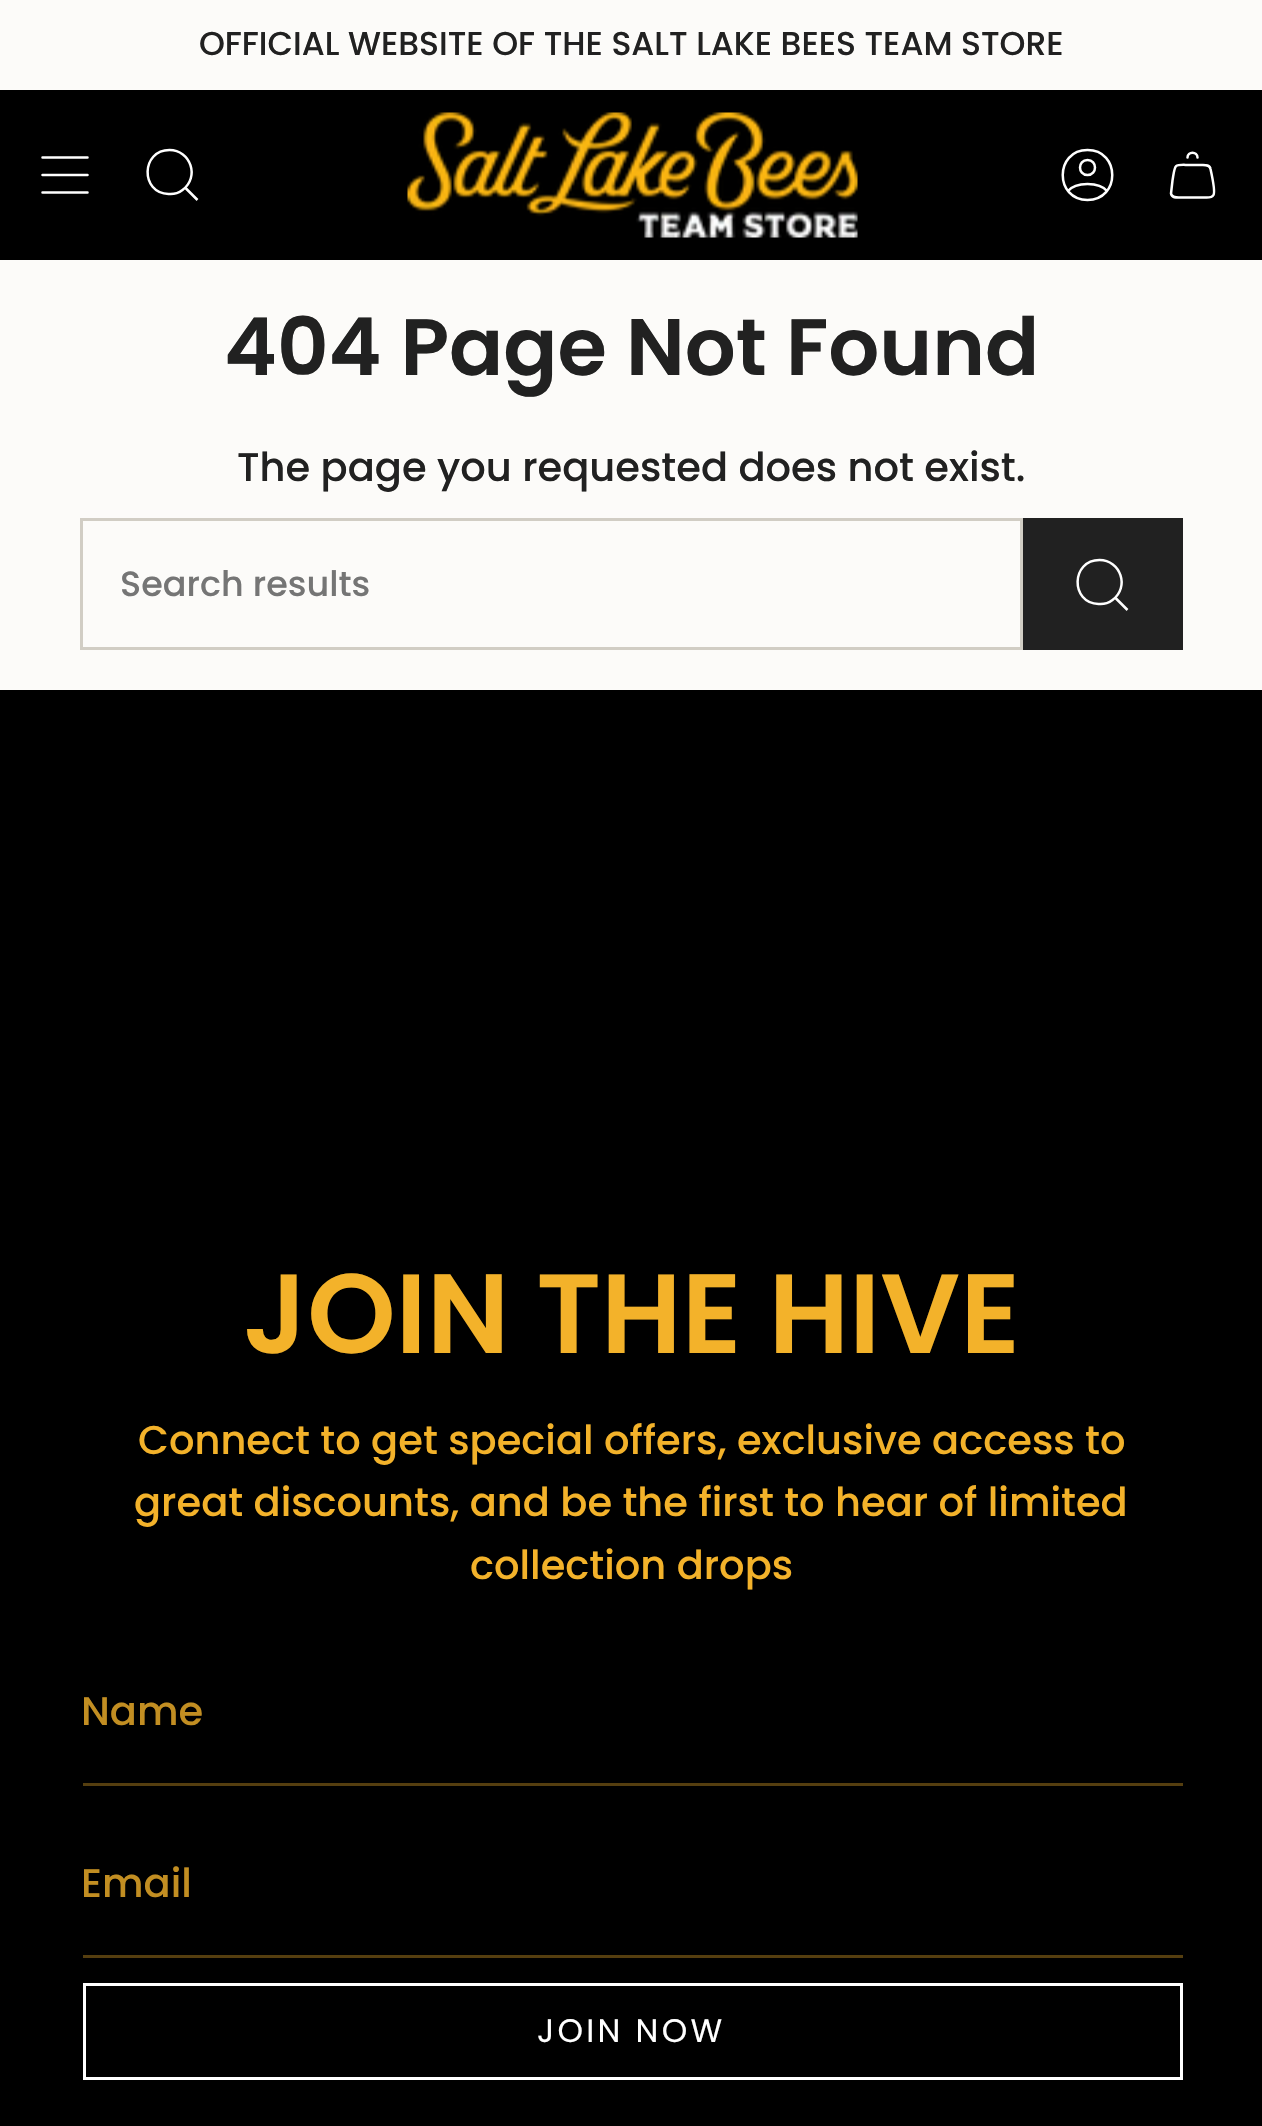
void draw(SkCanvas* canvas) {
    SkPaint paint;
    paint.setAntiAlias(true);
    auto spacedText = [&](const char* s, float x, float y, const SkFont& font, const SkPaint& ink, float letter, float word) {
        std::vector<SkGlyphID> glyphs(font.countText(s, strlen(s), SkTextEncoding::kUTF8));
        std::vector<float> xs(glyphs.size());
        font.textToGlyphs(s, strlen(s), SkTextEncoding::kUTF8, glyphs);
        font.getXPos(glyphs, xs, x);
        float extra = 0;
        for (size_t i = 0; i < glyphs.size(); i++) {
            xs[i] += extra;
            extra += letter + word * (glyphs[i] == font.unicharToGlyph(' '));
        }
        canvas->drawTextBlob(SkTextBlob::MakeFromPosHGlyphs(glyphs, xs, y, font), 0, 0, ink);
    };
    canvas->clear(0xFF000000);
    paint.setColor(0xFFFCFBF9);
    canvas->drawRect(SkRect::MakeXYWH(0, 0, 1262, 90), paint);
    SkFont font1(fontMgr->matchFamilyStyle("Poppins", SkFontStyle(500, SkFontStyle::kNormal_Width, SkFontStyle::kUpright_Slant)), 33);
    font1.setSubpixel(true);
    paint.setColor(0xFF212121);
    canvas->drawString("OFFICIAL WEBSITE OF THE SALT LAKE BEES TEAM STORE", 199, 55, font1, paint);
    paint.setStyle(SkPaint::kStroke_Style);
    paint.setStrokeWidth(2.5f);
    paint.setStrokeCap(SkPaint::kRound_Cap);
    paint.setStrokeJoin(SkPaint::kRound_Join);
    paint.setColor(0xFFFFFFFF);
    canvas->drawPath(SkPathBuilder().moveTo(42.5f, 157.5f).lineTo(87.5f, 157.5f).moveTo(42.5f, 175).lineTo(87.5f, 175).moveTo(42.5f, 192.5f).lineTo(87.5f, 192.5f).detach(), paint);
    paint.setStrokeCap(SkPaint::kButt_Cap);
    paint.setStrokeJoin(SkPaint::kMiter_Join);
    canvas->drawPath(SkPathBuilder().moveTo(169.5f, 150).cubicTo(190.5f, 150, 200, 177, 182.5f, 190).cubicTo(178.5f, 193, 173.5f, 194.5f, 168.5f, 194).cubicTo(140, 193, 141, 150, 169.5f, 150).close().moveTo(185.5f, 188).lineTo(197.5f, 200).detach(), paint);
    canvas->drawImageRect(SkImages::DeferredFromEncodedData(SkData::MakeFromFileName("img1.png")), SkRect::MakeXYWH(407, 112, 451, 126), SkSamplingOptions());
    paint.setStrokeCap(SkPaint::kRound_Cap);
    paint.setStrokeJoin(SkPaint::kRound_Join);
    canvas->drawPath(SkPathBuilder().moveTo(1087.5f, 150).cubicTo(1054.5f, 150, 1054.5f, 200, 1087.5f, 200).cubicTo(1120.5f, 200, 1120.5f, 150, 1087.5f, 150).close().moveTo(1068, 191).cubicTo(1075.5f, 181.5f, 1099.5f, 181.5f, 1107, 191).moveTo(1087.5f, 175).cubicTo(1097.5f, 175, 1097.5f, 160, 1087.5f, 160).cubicTo(1077.5f, 160, 1077.5f, 175, 1087.5f, 175).close().detach(), paint);
    canvas->drawPath(SkPathBuilder().moveTo(1210.5f, 169).cubicTo(1211.5f, 173.5f, 1215.5f, 191.5f, 1213.5f, 195).cubicTo(1211.5f, 198.5f, 1207, 197.5f, 1203.5f, 197.5f).lineTo(1181.5f, 197.5f).cubicTo(1177.5f, 197.5f, 1172, 198.5f, 1171, 193.5f).lineTo(1172.5f, 180.5f).cubicTo(1175.5f, 162, 1173.5f, 165, 1192.5f, 165).lineTo(1201.5f, 165).cubicTo(1205, 165, 1210, 164.5f, 1210.5f, 169).close().moveTo(1197.5f, 157.5f).cubicTo(1197.5f, 151, 1187.5f, 151, 1187.5f, 157.5f).detach(), paint);
    paint.setStyle(SkPaint::kFill_Style);
    paint.setColor(0xFFFCFBF9);
    canvas->drawRect(SkRect::MakeXYWH(0, 260, 1262, 430), paint);
    SkFont font2(fontMgr->matchFamilyStyle("Poppins", SkFontStyle(600, SkFontStyle::kNormal_Width, SkFontStyle::kUpright_Slant)), 80);
    font2.setSubpixel(true);
    paint.setColor(0xFF212121);
    canvas->drawString("404 Page Not Found", 224, 375, font2, paint);
    SkFont font3(fontMgr->matchFamilyStyle("Poppins", SkFontStyle(500, SkFontStyle::kNormal_Width, SkFontStyle::kUpright_Slant)), 40);
    font3.setSubpixel(true);
    canvas->drawString("The page you requested does not exist.", 237, 481, font3, paint);
    paint.setStyle(SkPaint::kStroke_Style);
    paint.setStrokeWidth(3);
    paint.setStrokeCap(SkPaint::kButt_Cap);
    paint.setStrokeJoin(SkPaint::kMiter_Join);
    paint.setColor(0xFFD1CDC4);
    canvas->drawRect(SkRect::MakeXYWH(81.5f, 519.5f, 940, 129), paint);
    SkFont font4(fontMgr->matchFamilyStyle("Poppins", SkFontStyle(500, SkFontStyle::kNormal_Width, SkFontStyle::kUpright_Slant)), 35);
    font4.setSubpixel(true);
    paint.setStyle(SkPaint::kFill_Style);
    paint.setColor(0xFF757575);
    canvas->drawString("Search results", 120, 596, font4, paint);
    paint.setColor(0xFF212121);
    canvas->drawRect(SkRect::MakeXYWH(1023, 518, 160, 132), paint);
    paint.setStyle(SkPaint::kStroke_Style);
    paint.setStrokeWidth(2.5f);
    paint.setColor(0xFFFFFFFF);
    canvas->drawPath(SkPathBuilder().moveTo(1099.5f, 560).cubicTo(1120.5f, 560, 1130, 587, 1112.5f, 600).cubicTo(1108.5f, 603, 1103.5f, 604.5f, 1098.5f, 604).cubicTo(1070, 603, 1071, 560, 1099.5f, 560).close().moveTo(1115.5f, 598).lineTo(1127.5f, 610).detach(), paint);
    SkFont font5(fontMgr->matchFamilyStyle("Poppins", SkFontStyle(600, SkFontStyle::kNormal_Width, SkFontStyle::kUpright_Slant)), 112.5f);
    font5.setSubpixel(true);
    paint.setStyle(SkPaint::kFill_Style);
    paint.setColor(0xFFF3B22A);
    canvas->drawString("JOIN THE HIVE", 243, 1353, font5, paint);
    canvas->drawString("Connect to get special offers, exclusive access to", 138, 1454, font3, paint);
    canvas->drawString("great discounts, and be the first to hear of limited", 134, 1516, font3, paint);
    canvas->drawString("collection drops", 470, 1579, font3, paint);
    paint.setColor(0xFF553E0F);
    canvas->drawRect(SkRect::MakeXYWH(83, 1783, 1100, 3), paint);
    paint.setColor(0xFFC28E22);
    canvas->drawString("Name", 81, 1725, font3, paint);
    paint.setColor(0xFF553E0F);
    canvas->drawRect(SkRect::MakeXYWH(83, 1955, 1100, 3), paint);
    paint.setColor(0xFFC28E22);
    canvas->drawString("Email", 81, 1897, font3, paint);
    paint.setStyle(SkPaint::kStroke_Style);
    paint.setStrokeWidth(3);
    paint.setColor(0xFFFFFFFF);
    canvas->drawRect(SkRect::MakeXYWH(84.5f, 1984.5f, 1097, 94), paint);
    SkFont font6(fontMgr->matchFamilyStyle("Poppins", SkFontStyle::Normal()), 32.5f);
    font6.setSubpixel(true);
    paint.setStyle(SkPaint::kFill_Style);
    spacedText("JOIN NOW", 537, 2042, font6, paint, 3.25f, 0);
}
